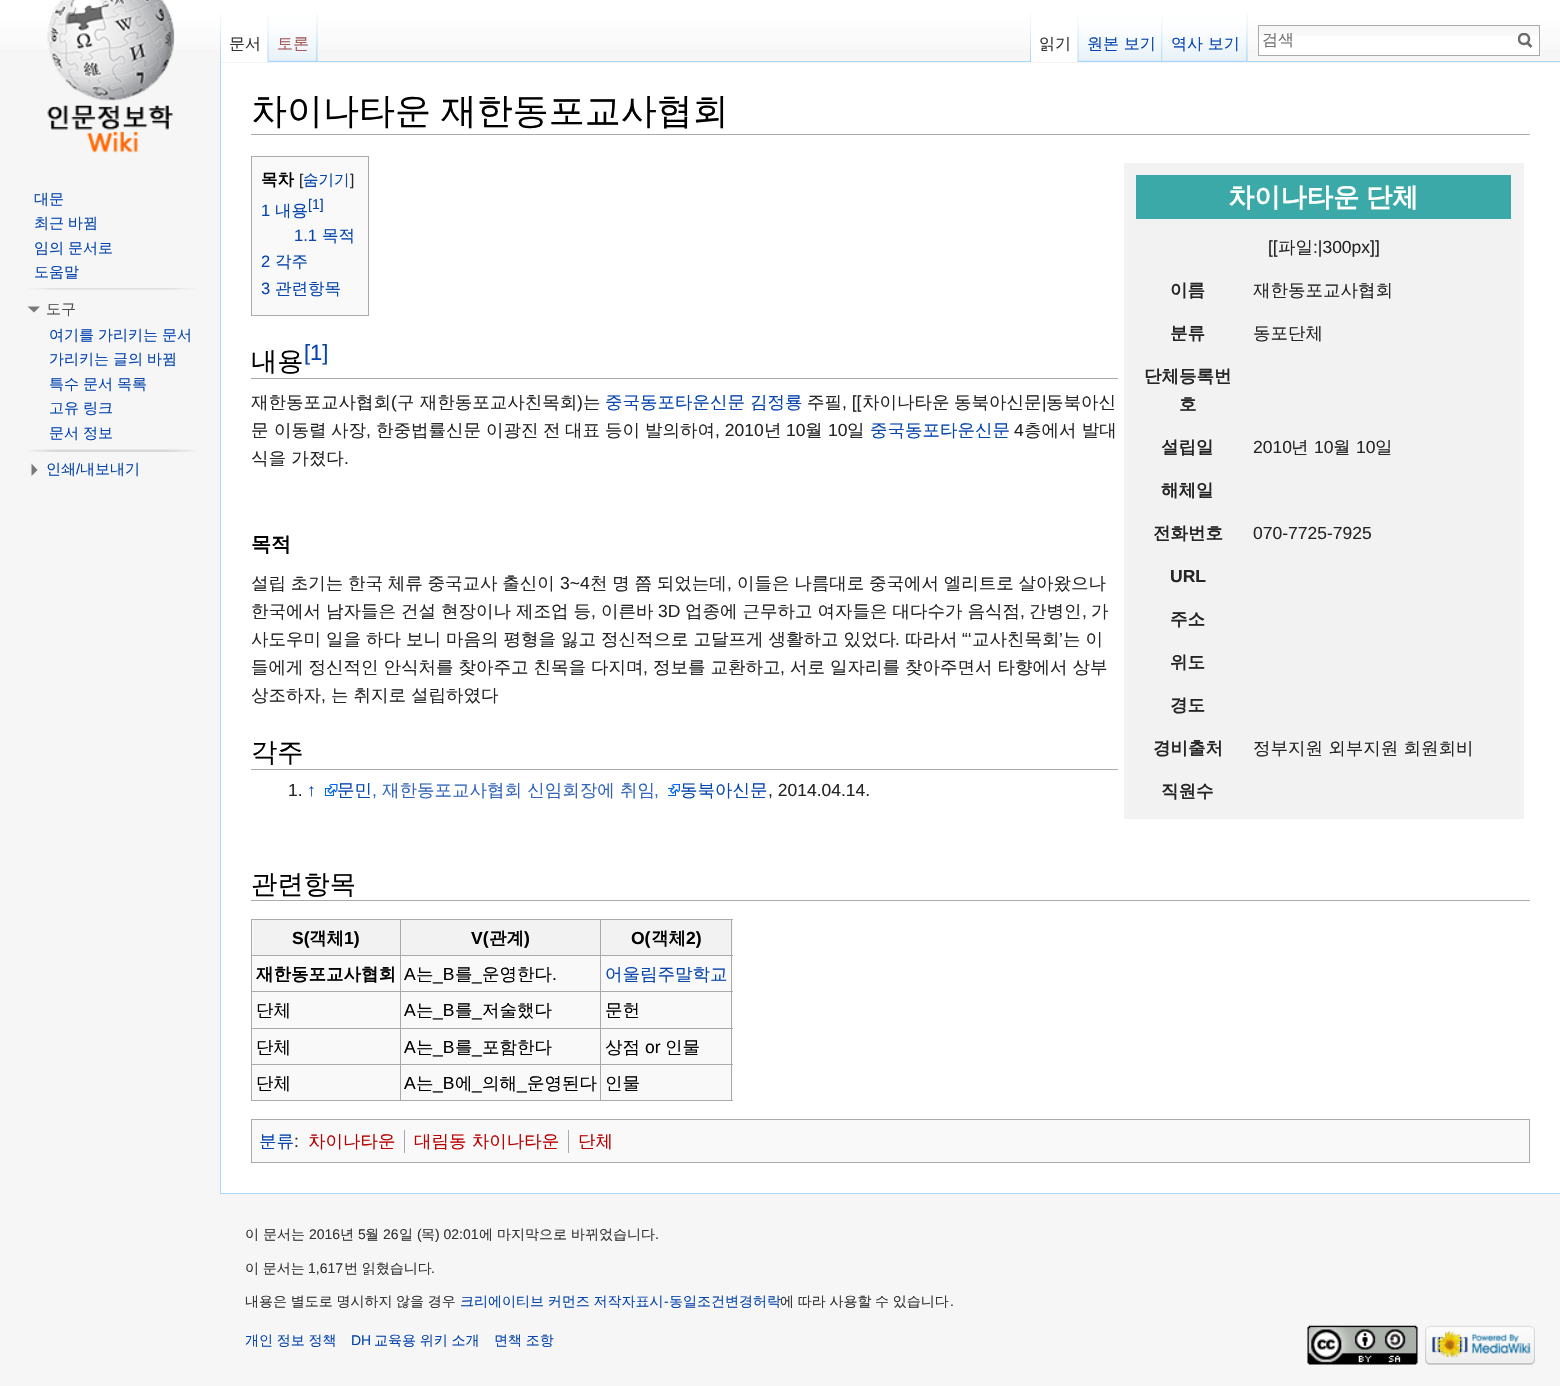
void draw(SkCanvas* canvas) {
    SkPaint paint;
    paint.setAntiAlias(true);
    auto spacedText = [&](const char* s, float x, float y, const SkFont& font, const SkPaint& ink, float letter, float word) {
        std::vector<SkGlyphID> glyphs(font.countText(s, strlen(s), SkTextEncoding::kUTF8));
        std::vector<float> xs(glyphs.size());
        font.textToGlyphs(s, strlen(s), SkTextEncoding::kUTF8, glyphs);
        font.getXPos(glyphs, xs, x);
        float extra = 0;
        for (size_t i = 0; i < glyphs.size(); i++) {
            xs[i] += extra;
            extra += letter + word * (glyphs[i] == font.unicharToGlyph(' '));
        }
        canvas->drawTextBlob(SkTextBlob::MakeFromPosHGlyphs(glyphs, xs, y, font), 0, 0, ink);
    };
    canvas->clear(0xFFF6F6F6);
    {
        const SkColor colors[] = {0xFFFFFFFF, 0xFFF6F6F6};
        const float stops[] = {0.5f, 1};
        const SkPoint ends[] = {{780, -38}, {780, 63}};
        paint.setShader(SkGradientShader::MakeLinear(ends, colors, stops, 2, SkTileMode::kClamp));
        paint.setAlpha(255);
    }
    canvas->drawRect(SkRect::MakeXYWH(0, 0, 1560, 49), paint);
    canvas->drawImageRect(SkImages::DeferredFromEncodedData(SkData::MakeFromFileName("img1.png")), SkRect::MakeXYWH(220, 12, 2, 49), SkSamplingOptions());
    paint.setShader(nullptr);
    paint.setColor(0xFFF3F3F3);
    canvas->drawRect(SkRect::MakeXYWH(221, 62, 48, 1), paint);
    paint.setColor(0xFFFFFFFF);
    canvas->drawRect(SkRect::MakeXYWH(221, 15, 48, 47), paint);
    canvas->drawImageRect(SkImages::DeferredFromEncodedData(SkData::MakeFromFileName("img2.png")), SkRect::MakeXYWH(267, 14, 2, 48), SkSamplingOptions());
    SkFont font1(fontMgr->matchFamilyStyle("WenQuanYi Zen Hei", SkFontStyle(500, SkFontStyle::kNormal_Width, SkFontStyle::kUpright_Slant)), 16);
    font1.setSubpixel(true);
    paint.setColor(0xFF333333);
    canvas->drawString("문서", 229, 49, font1, paint);
    paint.setColor(0xFFF3F3F3);
    canvas->drawRect(SkRect::MakeXYWH(269, 13, 49, 50), paint);
    canvas->drawImageRect(SkImages::DeferredFromEncodedData(SkData::MakeFromFileName("img3.png")), SkRect::MakeXYWH(268, 13, 50, 49), SkSamplingOptions());
    canvas->drawImageRect(SkImages::DeferredFromEncodedData(SkData::MakeFromFileName("img4.png")), SkRect::MakeXYWH(316, 14, 2, 48), SkSamplingOptions());
    paint.setColor(0xFFA55858);
    canvas->drawString("토론", 277, 49, font1, paint);
    canvas->drawImageRect(SkImages::DeferredFromEncodedData(SkData::MakeFromFileName("img1.png")), SkRect::MakeXYWH(1030, 12, 2, 49), SkSamplingOptions());
    paint.setColor(0xFFF3F3F3);
    canvas->drawRect(SkRect::MakeXYWH(1031, 62, 48, 1), paint);
    paint.setColor(0xFFA7D7F9);
    canvas->drawRect(SkRect::MakeXYWH(318, 61, 1242, 1), paint);
    paint.setColor(0xFFFFFFFF);
    canvas->drawRect(SkRect::MakeXYWH(1031, 15, 48, 47), paint);
    canvas->drawImageRect(SkImages::DeferredFromEncodedData(SkData::MakeFromFileName("img2.png")), SkRect::MakeXYWH(1077, 14, 2, 48), SkSamplingOptions());
    paint.setColor(0xFF333333);
    canvas->drawString("읽기", 1039, 49, font1, paint);
    paint.setColor(0xFFF3F3F3);
    canvas->drawRect(SkRect::MakeXYWH(1079, 13, 169, 50), paint);
    canvas->drawImageRect(SkImages::DeferredFromEncodedData(SkData::MakeFromFileName("img5.png")), SkRect::MakeXYWH(1078, 13, 85, 49), SkSamplingOptions());
    canvas->drawImageRect(SkImages::DeferredFromEncodedData(SkData::MakeFromFileName("img4.png")), SkRect::MakeXYWH(1161, 14, 2, 48), SkSamplingOptions());
    paint.setColor(0xFF0645AD);
    canvas->drawString("원본 보기", 1087, 49, font1, paint);
    canvas->drawImageRect(SkImages::DeferredFromEncodedData(SkData::MakeFromFileName("img6.png")), SkRect::MakeXYWH(1162, 13, 86, 49), SkSamplingOptions());
    canvas->drawImageRect(SkImages::DeferredFromEncodedData(SkData::MakeFromFileName("img4.png")), SkRect::MakeXYWH(1246, 14, 2, 48), SkSamplingOptions());
    canvas->drawString("역사 보기", 1171, 49, font1, paint);
    paint.setColor(0xFFFFFFFF);
    canvas->drawRect(SkRect::MakeXYWH(1259, 36, 280, 19), paint);
    canvas->drawImageRect(SkImages::DeferredFromEncodedData(SkData::MakeFromFileName("img7.png")), SkRect::MakeXYWH(1257, 26, 282, 10), SkSamplingOptions());
    paint.setStyle(SkPaint::kStroke_Style);
    paint.setStrokeWidth(1);
    paint.setColor(0xFFAAAAAA);
    canvas->drawRect(SkRect::MakeXYWH(1258.5f, 25.5f, 281, 30), paint);
    paint.setStyle(SkPaint::kFill_Style);
    paint.setColor(0xFF757575);
    canvas->drawString("검색", 1262, 45, font1, paint);
    paint.setStyle(SkPaint::kStroke_Style);
    paint.setStrokeWidth(2.5f);
    paint.setColor(0xFF6C6C6C);
    canvas->drawPath(SkPathBuilder().moveTo(1531.5f, 47).lineTo(1526.5f, 42).detach(), paint);
    canvas->save();
    canvas->clipRect(SkRect::MakeXYWH(1518, 33, 15, 16));
    canvas->drawCircle(1524, 39, 5, paint);
    canvas->restore();
    canvas->drawImageRect(SkImages::DeferredFromEncodedData(SkData::MakeFromFileName("img8.png")), SkRect::MakeXYWH(47, 0, 128, 153), SkSamplingOptions());
    SkFont font2(fontMgr->matchFamilyStyle("WenQuanYi Zen Hei", SkFontStyle(500, SkFontStyle::kNormal_Width, SkFontStyle::kUpright_Slant)), 15);
    font2.setSubpixel(true);
    paint.setStyle(SkPaint::kFill_Style);
    paint.setColor(0xFF0645AD);
    canvas->drawString("대문", 34, 204, font2, paint);
    spacedText("최근 바뀜", 34, 228, font2, paint, 0, -0.5f);
    spacedText("임의 문서로", 34, 253, font2, paint, 0, -0.5f);
    canvas->drawString("도움말", 34, 277, font2, paint);
    canvas->drawImageRect(SkImages::DeferredFromEncodedData(SkData::MakeFromFileName("img9.png")), SkRect::MakeXYWH(27, 288, 170, 2), SkSamplingOptions());
    paint.setColor(0xFF797979);
    canvas->drawPath(SkPathBuilder().moveTo(40, 306.5f).lineTo(34, 312.5f).lineTo(27.5f, 306.5f).close().detach(), paint);
    paint.setColor(0xFF4D4D4D);
    canvas->drawString("도구", 46, 314, font2, paint);
    paint.setColor(0xFF0645AD);
    spacedText("여기를 가리키는 문서", 49, 340, font2, paint, 0, -0.5f);
    spacedText("가리키는 글의 바뀜", 49, 364, font2, paint, 0, -0.5f);
    spacedText("특수 문서 목록", 49, 389, font2, paint, 0, -0.5f);
    spacedText("고유 링크", 49, 413, font2, paint, 0, -0.5f);
    spacedText("문서 정보", 49, 438, font2, paint, 0, -0.5f);
    canvas->drawImageRect(SkImages::DeferredFromEncodedData(SkData::MakeFromFileName("img10.png")), SkRect::MakeXYWH(27, 449, 170, 3), SkSamplingOptions());
    paint.setColor(0xFF797979);
    canvas->drawPath(SkPathBuilder().moveTo(31.5f, 463.5f).lineTo(37.5f, 470).lineTo(31.5f, 476).close().detach(), paint);
    paint.setColor(0xFF0645AD);
    canvas->drawString("인쇄", 46, 474, font2, paint);
    SkFont font3(fontMgr->matchFamilyStyle("Liberation Sans", SkFontStyle::Normal()), 15);
    font3.setSubpixel(true);
    canvas->drawString("/", 76, 474, font3, paint);
    canvas->drawString("내보내기", 80, 474, font2, paint);
    paint.setColor(0xFFFFFFFF);
    canvas->drawRect(SkRect::MakeXYWH(221, 63, 1339, 1130), paint);
    paint.setColor(0xFFA7D7F9);
    canvas->drawRect(SkRect::MakeXYWH(220, 1193, 1340, 1), paint);
    canvas->drawRect(SkRect::MakeXYWH(220, 61, 1, 1133), paint);
    paint.setColor(0xFFAAAAAA);
    canvas->drawRect(SkRect::MakeXYWH(251, 134, 1279, 1), paint);
    SkFont font4(fontMgr->matchFamilyStyle("WenQuanYi Zen Hei", SkFontStyle(500, SkFontStyle::kNormal_Width, SkFontStyle::kUpright_Slant)), 36);
    font4.setSubpixel(true);
    paint.setColor(0xFF000000);
    spacedText("차이나타운 재한동포교사협회", 251, 123, font4, paint, 0, -1);
    paint.setColor(0xFFF9F9F9);
    canvas->drawRect(SkRect::MakeXYWH(251.5f, 156.5f, 117, 159), paint);
    paint.setStyle(SkPaint::kStroke_Style);
    paint.setStrokeWidth(1);
    paint.setColor(0xFFAAAAAA);
    canvas->drawRect(SkRect::MakeXYWH(251.5f, 156.5f, 117, 159), paint);
    SkFont font5(fontMgr->matchFamilyStyle("WenQuanYi Zen Hei", SkFontStyle::Bold()), 16.5f);
    font5.setSubpixel(true);
    paint.setStyle(SkPaint::kFill_Style);
    paint.setColor(0xFF000000);
    canvas->drawString("목차", 261, 185, font5, paint);
    SkFont font6(fontMgr->matchFamilyStyle("Liberation Sans", SkFontStyle::Normal()), 15.5f);
    font6.setSubpixel(true);
    paint.setColor(0xFF252525);
    canvas->drawString("[", 299, 185, font6, paint);
    SkFont font7(fontMgr->matchFamilyStyle("WenQuanYi Zen Hei", SkFontStyle(500, SkFontStyle::kNormal_Width, SkFontStyle::kUpright_Slant)), 15.5f);
    font7.setSubpixel(true);
    paint.setColor(0xFF0645AD);
    canvas->drawString("숨기기", 303, 185, font7, paint);
    paint.setColor(0xFF252525);
    canvas->drawString("]", 350, 185, font6, paint);
    SkFont font8(fontMgr->matchFamilyStyle("Liberation Sans", SkFontStyle::Normal()), 16.5f);
    font8.setSubpixel(true);
    paint.setColor(0xFF0645AD);
    canvas->drawString("1", 261, 216, font8, paint);
    SkFont font9(fontMgr->matchFamilyStyle("WenQuanYi Zen Hei", SkFontStyle(500, SkFontStyle::kNormal_Width, SkFontStyle::kUpright_Slant)), 16.5f);
    font9.setSubpixel(true);
    canvas->drawString("내용", 275, 216, font9, paint);
    SkFont font10(fontMgr->matchFamilyStyle("Liberation Sans", SkFontStyle::Normal()), 14);
    font10.setSubpixel(true);
    canvas->drawString("[1]", 308, 209, font10, paint);
    canvas->drawString("1.1", 294, 241, font8, paint);
    canvas->drawString("목적", 322, 241, font9, paint);
    canvas->drawString("2", 261, 267, font8, paint);
    canvas->drawString("각주", 275, 267, font9, paint);
    canvas->drawString("3", 261, 294, font8, paint);
    canvas->drawString("관련항목", 275, 294, font9, paint);
    paint.setColor(0xFFF2F2F2);
    canvas->drawRect(SkRect::MakeXYWH(1124, 163, 400, 656), paint);
    paint.setColor(0xFF3CA9A9);
    canvas->drawRect(SkRect::MakeXYWH(1136, 175, 375, 44), paint);
    SkFont font11(fontMgr->matchFamilyStyle("WenQuanYi Zen Hei", SkFontStyle::Bold()), 26.25f);
    font11.setSubpixel(true);
    paint.setColor(0xFFFFFFFF);
    spacedText("차이나타운 단체", 1228, 206, font11, paint, 0, -1);
    SkFont font12(fontMgr->matchFamilyStyle("Liberation Sans", SkFontStyle::Normal()), 17.5f);
    font12.setSubpixel(true);
    paint.setColor(0xFF252525);
    canvas->drawString("[[", 1268, 253, font12, paint);
    SkFont font13(fontMgr->matchFamilyStyle("WenQuanYi Zen Hei", SkFontStyle(500, SkFontStyle::kNormal_Width, SkFontStyle::kUpright_Slant)), 17.5f);
    font13.setSubpixel(true);
    canvas->drawString("파일", 1278, 253, font13, paint);
    canvas->drawString(":|300px]]", 1313, 253, font12, paint);
    SkFont font14(fontMgr->matchFamilyStyle("WenQuanYi Zen Hei", SkFontStyle::Bold()), 17.5f);
    font14.setSubpixel(true);
    canvas->drawString("이름", 1170, 296, font14, paint);
    canvas->drawString("재한동포교사협회", 1253, 296, font13, paint);
    canvas->drawString("분류", 1170, 339, font14, paint);
    canvas->drawString("동포단체", 1253, 339, font13, paint);
    canvas->drawString("단체등록번", 1144, 382, font14, paint);
    canvas->drawString("호", 1179, 410, font14, paint);
    canvas->drawString("설립일", 1161, 453, font14, paint);
    canvas->drawString("2010", 1253, 453, font12, paint);
    canvas->drawString("년", 1291, 453, font13, paint);
    canvas->drawString("10", 1314, 453, font12, paint);
    canvas->drawString("월", 1333, 453, font13, paint);
    canvas->drawString("10", 1356, 453, font12, paint);
    canvas->drawString("일", 1375, 453, font13, paint);
    canvas->drawString("해체일", 1161, 496, font14, paint);
    canvas->drawString("전화번호", 1153, 539, font14, paint);
    canvas->drawString("070-7725-7925", 1253, 539, font12, paint);
    SkFont font15(fontMgr->matchFamilyStyle("Liberation Sans", SkFontStyle::Bold()), 17.5f);
    font15.setSubpixel(true);
    canvas->drawString("URL", 1170, 582, font15, paint);
    canvas->drawString("주소", 1170, 625, font14, paint);
    canvas->drawString("위도", 1170, 668, font14, paint);
    canvas->drawString("경도", 1170, 711, font14, paint);
    canvas->drawString("경비출처", 1153, 754, font14, paint);
    canvas->drawString("정부지원 외부지원 회원회비", 1253, 754, font13, paint);
    canvas->drawString("직원수", 1161, 797, font14, paint);
    paint.setColor(0xFFAAAAAA);
    canvas->drawRect(SkRect::MakeXYWH(251, 378, 867, 1), paint);
    SkFont font16(fontMgr->matchFamilyStyle("WenQuanYi Zen Hei", SkFontStyle(500, SkFontStyle::kNormal_Width, SkFontStyle::kUpright_Slant)), 26.25f);
    font16.setSubpixel(true);
    paint.setColor(0xFF000000);
    canvas->drawString("내용", 251, 370, font16, paint);
    SkFont font17(fontMgr->matchFamilyStyle("Liberation Sans", SkFontStyle::Normal()), 22);
    font17.setSubpixel(true);
    paint.setColor(0xFF0645AD);
    canvas->drawString("[1]", 304, 360, font17, paint);
    paint.setColor(0xFF252525);
    canvas->drawString("재한동포교사협회", 251, 408, font13, paint);
    canvas->drawString("(", 391, 408, font12, paint);
    canvas->drawString("구 재한동포교사친목회", 397, 408, font13, paint);
    canvas->drawString(")", 577, 408, font12, paint);
    canvas->drawString("는", 583, 408, font13, paint);
    paint.setColor(0xFF0645AD);
    canvas->drawString("중국동포타운신문", 605, 408, font13, paint);
    canvas->drawString("김정룡", 750, 408, font13, paint);
    paint.setColor(0xFF252525);
    canvas->drawString("주필", 807, 408, font13, paint);
    canvas->drawString(", [[", 842, 408, font12, paint);
    canvas->drawString("차이나타운", 862, 408, font13, paint);
    canvas->drawString("동북아신문", 954, 408, font13, paint);
    canvas->drawString("|", 1042, 408, font12, paint);
    canvas->drawString("동북아신", 1046, 408, font13, paint);
    canvas->drawString("문", 251, 436, font13, paint);
    canvas->drawString("이동렬", 274, 436, font13, paint);
    canvas->drawString("사장", 331, 436, font13, paint);
    canvas->drawString("한중법률신문", 376, 436, font13, paint);
    canvas->drawString("이광진", 486, 436, font13, paint);
    canvas->drawString("전", 543, 436, font13, paint);
    canvas->drawString("대표", 565, 436, font13, paint);
    canvas->drawString("등이", 605, 436, font13, paint);
    canvas->drawString("발의하여", 645, 436, font13, paint);
    canvas->drawString(", 2010", 715, 436, font12, paint);
    canvas->drawString("년", 764, 436, font13, paint);
    canvas->drawString("10", 786, 436, font12, paint);
    canvas->drawString("월", 805, 436, font13, paint);
    canvas->drawString("10", 828, 436, font12, paint);
    canvas->drawString("일", 847, 436, font13, paint);
    paint.setColor(0xFF0645AD);
    canvas->drawString("중국동포타운신문", 870, 436, font13, paint);
    paint.setColor(0xFF252525);
    canvas->drawString("4", 1014, 436, font12, paint);
    canvas->drawString("층에서 발대", 1024, 436, font13, paint);
    canvas->drawString(",", 366, 436, font12, paint);
    canvas->drawString("식을 가졌다", 251, 464, font13, paint);
    canvas->drawString(".", 344, 464, font12, paint);
    SkFont font18(fontMgr->matchFamilyStyle("WenQuanYi Zen Hei", SkFontStyle::Bold()), 20);
    font18.setSubpixel(true);
    paint.setColor(0xFF000000);
    canvas->drawString("목적", 251, 551, font18, paint);
    paint.setColor(0xFF252525);
    spacedText("설립 초기는 한국 체류 중국교사 출신이", 251, 589, font13, paint, 0, -0.5f);
    canvas->drawString("3~4", 560, 589, font12, paint);
    spacedText("천 명 쯤 되었는데", 590, 589, font13, paint, 0, -0.5f);
    canvas->drawString(",", 727, 589, font12, paint);
    spacedText("이들은 나름대로 중국에서 엘리트로 살아왔으나", 737, 589, font13, paint, 0, -0.5f);
    spacedText("한국에서 남자들은 건설 현장이나 제조업 등", 251, 617, font13, paint, 0, -0.25f);
    canvas->drawString(",", 591, 617, font12, paint);
    canvas->drawString("이른바", 601, 617, font13, paint);
    canvas->drawString("3D", 658, 617, font12, paint);
    spacedText("업종에 근무하고 여자들은 대다수가 음식점", 685, 617, font13, paint, 0, -0.25f);
    canvas->drawString(",", 1020, 617, font12, paint);
    canvas->drawString("간병인", 1029, 617, font13, paint);
    canvas->drawString(",", 1082, 617, font12, paint);
    canvas->drawString("가", 1091, 617, font13, paint);
    spacedText("사도우미 일을 하다 보니 마음의 평형을 잃고 정신적으로 고달프게 생활하고 있었다", 251, 645, font13, paint, 0, -0.25f);
    canvas->drawString("따라서", 905, 645, font13, paint);
    canvas->drawString("“‘", 962, 645, font12, paint);
    canvas->drawString("교사친목회", 972, 645, font13, paint);
    canvas->drawString("’", 1059, 645, font12, paint);
    spacedText("는 이", 1063, 645, font13, paint, 0, -0.25f);
    canvas->drawString(".", 895, 645, font12, paint);
    spacedText("들에게 정신적인 안식처를 찾아주고 친목을 다지며", 251, 673, font13, paint, 0, -0.25f);
    canvas->drawString(",", 643, 673, font12, paint);
    spacedText("정보를 교환하고", 653, 673, font13, paint, 0, -0.25f);
    canvas->drawString(",", 780, 673, font12, paint);
    spacedText("서로 일자리를 찾아주면서 타향에서 상부", 790, 673, font13, paint, 0, -0.25f);
    canvas->drawString("상조하자", 251, 701, font13, paint);
    canvas->drawString(",", 321, 701, font12, paint);
    spacedText("는 취지로 설립하였다", 331, 701, font13, paint, 0, -0.25f);
    paint.setColor(0xFFAAAAAA);
    canvas->drawRect(SkRect::MakeXYWH(251, 769, 867, 1), paint);
    paint.setColor(0xFF000000);
    canvas->drawString("각주", 251, 761, font16, paint);
    paint.setColor(0xFF252525);
    canvas->drawString("1.", 288, 796, font12, paint);
    paint.setColor(0xFF0645AD);
    canvas->drawString("↑", 307, 796, font12, paint);
    canvas->drawImageRect(SkImages::DeferredFromEncodedData(SkData::MakeFromFileName("img11.png")), SkRect::MakeXYWH(325, 784, 13, 12), SkSamplingOptions());
    canvas->drawString("문민", 337, 796, font13, paint);
    paint.setColor(0xFF3366BB);
    canvas->drawString(",", 372, 796, font12, paint);
    canvas->drawString("재한동포교사협회 신임회장에 취임", 382, 796, font13, paint);
    canvas->drawString(",", 654, 796, font12, paint);
    canvas->drawImageRect(SkImages::DeferredFromEncodedData(SkData::MakeFromFileName("img12.png")), SkRect::MakeXYWH(668, 784, 12, 12), SkSamplingOptions());
    paint.setColor(0xFF0645AD);
    canvas->drawString("동북아신문", 680, 796, font13, paint);
    paint.setColor(0xFF252525);
    canvas->drawString(", 2014.04.14.", 768, 796, font12, paint);
    paint.setColor(0xFFAAAAAA);
    canvas->drawRect(SkRect::MakeXYWH(251, 900, 1279, 1), paint);
    paint.setColor(0xFF000000);
    canvas->drawString("관련항목", 251, 893, font16, paint);
    paint.setColor(0xFFF9F9F9);
    canvas->drawRect(SkRect::MakeXYWH(252, 920, 481, 180), paint);
    paint.setColor(0xFFAAAAAA);
    canvas->drawRect(SkRect::MakeXYWH(251, 919, 482, 1), paint);
    canvas->drawRect(SkRect::MakeXYWH(731, 919, 1, 182), paint);
    canvas->drawRect(SkRect::MakeXYWH(251, 1100, 482, 1), paint);
    canvas->drawRect(SkRect::MakeXYWH(251, 919, 1, 182), paint);
    paint.setColor(0xFFF2F2F2);
    canvas->drawRect(SkRect::MakeXYWH(253, 920, 147, 35), paint);
    paint.setColor(0xFF000000);
    canvas->drawString("S(", 292, 944, font15, paint);
    canvas->drawString("객체", 309, 944, font14, paint);
    canvas->drawString("1)", 344, 944, font15, paint);
    paint.setColor(0xFFF2F2F2);
    canvas->drawRect(SkRect::MakeXYWH(401, 920, 199, 35), paint);
    paint.setColor(0xFFAAAAAA);
    canvas->drawRect(SkRect::MakeXYWH(600, 955, 133, 1), paint);
    canvas->drawRect(SkRect::MakeXYWH(600, 991, 133, 1), paint);
    canvas->drawRect(SkRect::MakeXYWH(600, 1028, 133, 1), paint);
    canvas->drawRect(SkRect::MakeXYWH(600, 1064, 133, 1), paint);
    canvas->drawRect(SkRect::MakeXYWH(600, 1064, 1, 37), paint);
    canvas->drawRect(SkRect::MakeXYWH(400, 1064, 201, 1), paint);
    canvas->drawRect(SkRect::MakeXYWH(600, 1028, 1, 37), paint);
    canvas->drawRect(SkRect::MakeXYWH(400, 1028, 201, 1), paint);
    canvas->drawRect(SkRect::MakeXYWH(600, 991, 1, 38), paint);
    canvas->drawRect(SkRect::MakeXYWH(400, 991, 201, 1), paint);
    canvas->drawRect(SkRect::MakeXYWH(600, 955, 1, 38), paint);
    canvas->drawRect(SkRect::MakeXYWH(400, 955, 201, 1), paint);
    canvas->drawRect(SkRect::MakeXYWH(400, 1064, 1, 37), paint);
    canvas->drawRect(SkRect::MakeXYWH(251, 1064, 150, 1), paint);
    canvas->drawRect(SkRect::MakeXYWH(400, 1028, 1, 37), paint);
    canvas->drawRect(SkRect::MakeXYWH(251, 1028, 150, 1), paint);
    canvas->drawRect(SkRect::MakeXYWH(400, 991, 1, 38), paint);
    canvas->drawRect(SkRect::MakeXYWH(251, 991, 150, 1), paint);
    canvas->drawRect(SkRect::MakeXYWH(400, 955, 1, 38), paint);
    canvas->drawRect(SkRect::MakeXYWH(251, 955, 150, 1), paint);
    canvas->drawRect(SkRect::MakeXYWH(400, 919, 1, 37), paint);
    paint.setColor(0xFF000000);
    canvas->drawString("V(", 471, 944, font15, paint);
    canvas->drawString("관계", 489, 944, font14, paint);
    canvas->drawString(")", 524, 944, font15, paint);
    paint.setColor(0xFFF2F2F2);
    canvas->drawRect(SkRect::MakeXYWH(601, 920, 130, 35), paint);
    paint.setColor(0xFFAAAAAA);
    canvas->drawRect(SkRect::MakeXYWH(600, 919, 1, 37), paint);
    paint.setColor(0xFF000000);
    canvas->drawString("O(", 631, 944, font15, paint);
    canvas->drawString("객체", 651, 944, font14, paint);
    canvas->drawString("2)", 686, 944, font15, paint);
    canvas->drawString("재한동포교사협회", 256, 980, font14, paint);
    canvas->drawString("A", 404, 980, font12, paint);
    canvas->drawString("는", 416, 980, font13, paint);
    canvas->drawString("_B", 433, 980, font12, paint);
    canvas->drawString("를", 455, 980, font13, paint);
    canvas->drawString("운영한다", 482, 980, font13, paint);
    canvas->drawString(".", 552, 980, font12, paint);
    canvas->drawString("_", 472, 980, font12, paint);
    paint.setColor(0xFF0645AD);
    canvas->drawString("어울림주말학교", 605, 980, font13, paint);
    paint.setColor(0xFF000000);
    canvas->drawString("단체", 256, 1016, font13, paint);
    canvas->drawString("A", 404, 1016, font12, paint);
    canvas->drawString("는", 416, 1016, font13, paint);
    canvas->drawString("_B", 433, 1016, font12, paint);
    canvas->drawString("를", 455, 1016, font13, paint);
    canvas->drawString("_", 472, 1016, font12, paint);
    canvas->drawString("저술했다", 482, 1016, font13, paint);
    canvas->drawString("문헌", 605, 1016, font13, paint);
    canvas->drawString("단체", 256, 1053, font13, paint);
    canvas->drawString("A", 404, 1053, font12, paint);
    canvas->drawString("는", 416, 1053, font13, paint);
    canvas->drawString("_B", 433, 1053, font12, paint);
    canvas->drawString("를", 455, 1053, font13, paint);
    canvas->drawString("_", 472, 1053, font12, paint);
    canvas->drawString("포함한다", 482, 1053, font13, paint);
    canvas->drawString("상점", 605, 1053, font13, paint);
    canvas->drawString("or", 645, 1053, font12, paint);
    canvas->drawString("인물", 665, 1053, font13, paint);
    canvas->drawString("단체", 256, 1089, font13, paint);
    canvas->drawString("A", 404, 1089, font12, paint);
    canvas->drawString("는", 416, 1089, font13, paint);
    canvas->drawString("_B", 433, 1089, font12, paint);
    canvas->drawString("에", 455, 1089, font13, paint);
    canvas->drawString("_", 472, 1089, font12, paint);
    canvas->drawString("의해", 482, 1089, font13, paint);
    canvas->drawString("_", 517, 1089, font12, paint);
    canvas->drawString("운영된다", 527, 1089, font13, paint);
    canvas->drawString("인물", 605, 1089, font13, paint);
    paint.setColor(0xFFF9F9F9);
    canvas->drawRect(SkRect::MakeXYWH(251.5f, 1119.5f, 1278, 43), paint);
    paint.setStyle(SkPaint::kStroke_Style);
    paint.setColor(0xFFAAAAAA);
    canvas->drawRect(SkRect::MakeXYWH(251.5f, 1119.5f, 1278, 43), paint);
    paint.setStyle(SkPaint::kFill_Style);
    paint.setColor(0xFF0645AD);
    canvas->drawString("분류", 259, 1147, font13, paint);
    paint.setColor(0xFF252525);
    canvas->drawString(":", 294, 1147, font12, paint);
    paint.setColor(0xFFBA0000);
    canvas->drawString("차이나타운", 308, 1147, font13, paint);
    paint.setColor(0xFFAAAAAA);
    canvas->drawRect(SkRect::MakeXYWH(404, 1130, 1, 23), paint);
    paint.setColor(0xFFBA0000);
    canvas->drawString("대림동 차이나타운", 414, 1147, font13, paint);
    paint.setColor(0xFFAAAAAA);
    canvas->drawRect(SkRect::MakeXYWH(568, 1130, 1, 23), paint);
    paint.setColor(0xFFBA0000);
    canvas->drawString("단체", 578, 1147, font13, paint);
    SkFont font19(fontMgr->matchFamilyStyle("WenQuanYi Zen Hei", SkFontStyle(500, SkFontStyle::kNormal_Width, SkFontStyle::kUpright_Slant)), 14);
    font19.setSubpixel(true);
    paint.setColor(0xFF333333);
    canvas->drawString("이", 245, 1239, font19, paint);
    canvas->drawString("문서는", 263, 1239, font19, paint);
    canvas->drawString("2016", 309, 1239, font10, paint);
    canvas->drawString("년", 340, 1239, font19, paint);
    canvas->drawString("5", 358, 1239, font10, paint);
    canvas->drawString("월", 365, 1239, font19, paint);
    canvas->drawString("26", 383, 1239, font10, paint);
    canvas->drawString("일", 399, 1239, font19, paint);
    canvas->drawString("(", 417, 1239, font10, paint);
    canvas->drawString("목", 421, 1239, font19, paint);
    canvas->drawString(") 02:01", 435, 1239, font10, paint);
    canvas->drawString("에", 479, 1239, font19, paint);
    canvas->drawString("마지막으로", 497, 1239, font19, paint);
    canvas->drawString("바뀌었습니다", 571, 1239, font19, paint);
    canvas->drawString(".", 655, 1239, font10, paint);
    spacedText("이 문서는", 245, 1273, font19, paint, 0, -0.5f);
    canvas->drawString("1,617", 308, 1273, font10, paint);
    spacedText("번 읽혔습니다", 344, 1273, font19, paint, 0, -0.5f);
    canvas->drawString(".", 431, 1273, font10, paint);
    spacedText("내용은 별도로 명시하지 않을 경우", 245, 1306, font19, paint, 0, -0.5f);
    paint.setColor(0xFF0645AD);
    spacedText("크리에이티브 커먼즈 저작자표시", 460, 1306, font19, paint, 0, -0.5f);
    canvas->drawString("-", 664, 1306, font10, paint);
    canvas->drawString("동일조건변경허락", 669, 1306, font19, paint);
    paint.setColor(0xFF333333);
    spacedText("에 따라 사용할 수 있습니다", 780, 1306, font19, paint, 0, -0.5f);
    canvas->drawString(".", 950, 1306, font10, paint);
    paint.setColor(0xFF0645AD);
    spacedText("개인 정보 정책", 245, 1345, font19, paint, 0, -0.5f);
    canvas->drawString("DH", 351, 1345, font10, paint);
    spacedText("교육용 위키 소개", 374, 1345, font19, paint, 0, -0.5f);
    spacedText("면책 조항", 494, 1345, font19, paint, 0, -0.5f);
    canvas->drawImageRect(SkImages::DeferredFromEncodedData(SkData::MakeFromFileName("img13.png")), SkRect::MakeXYWH(1307, 1325, 111, 40), SkSamplingOptions());
    canvas->drawImageRect(SkImages::DeferredFromEncodedData(SkData::MakeFromFileName("img14.png")), SkRect::MakeXYWH(1425, 1325, 110, 40), SkSamplingOptions());
}
